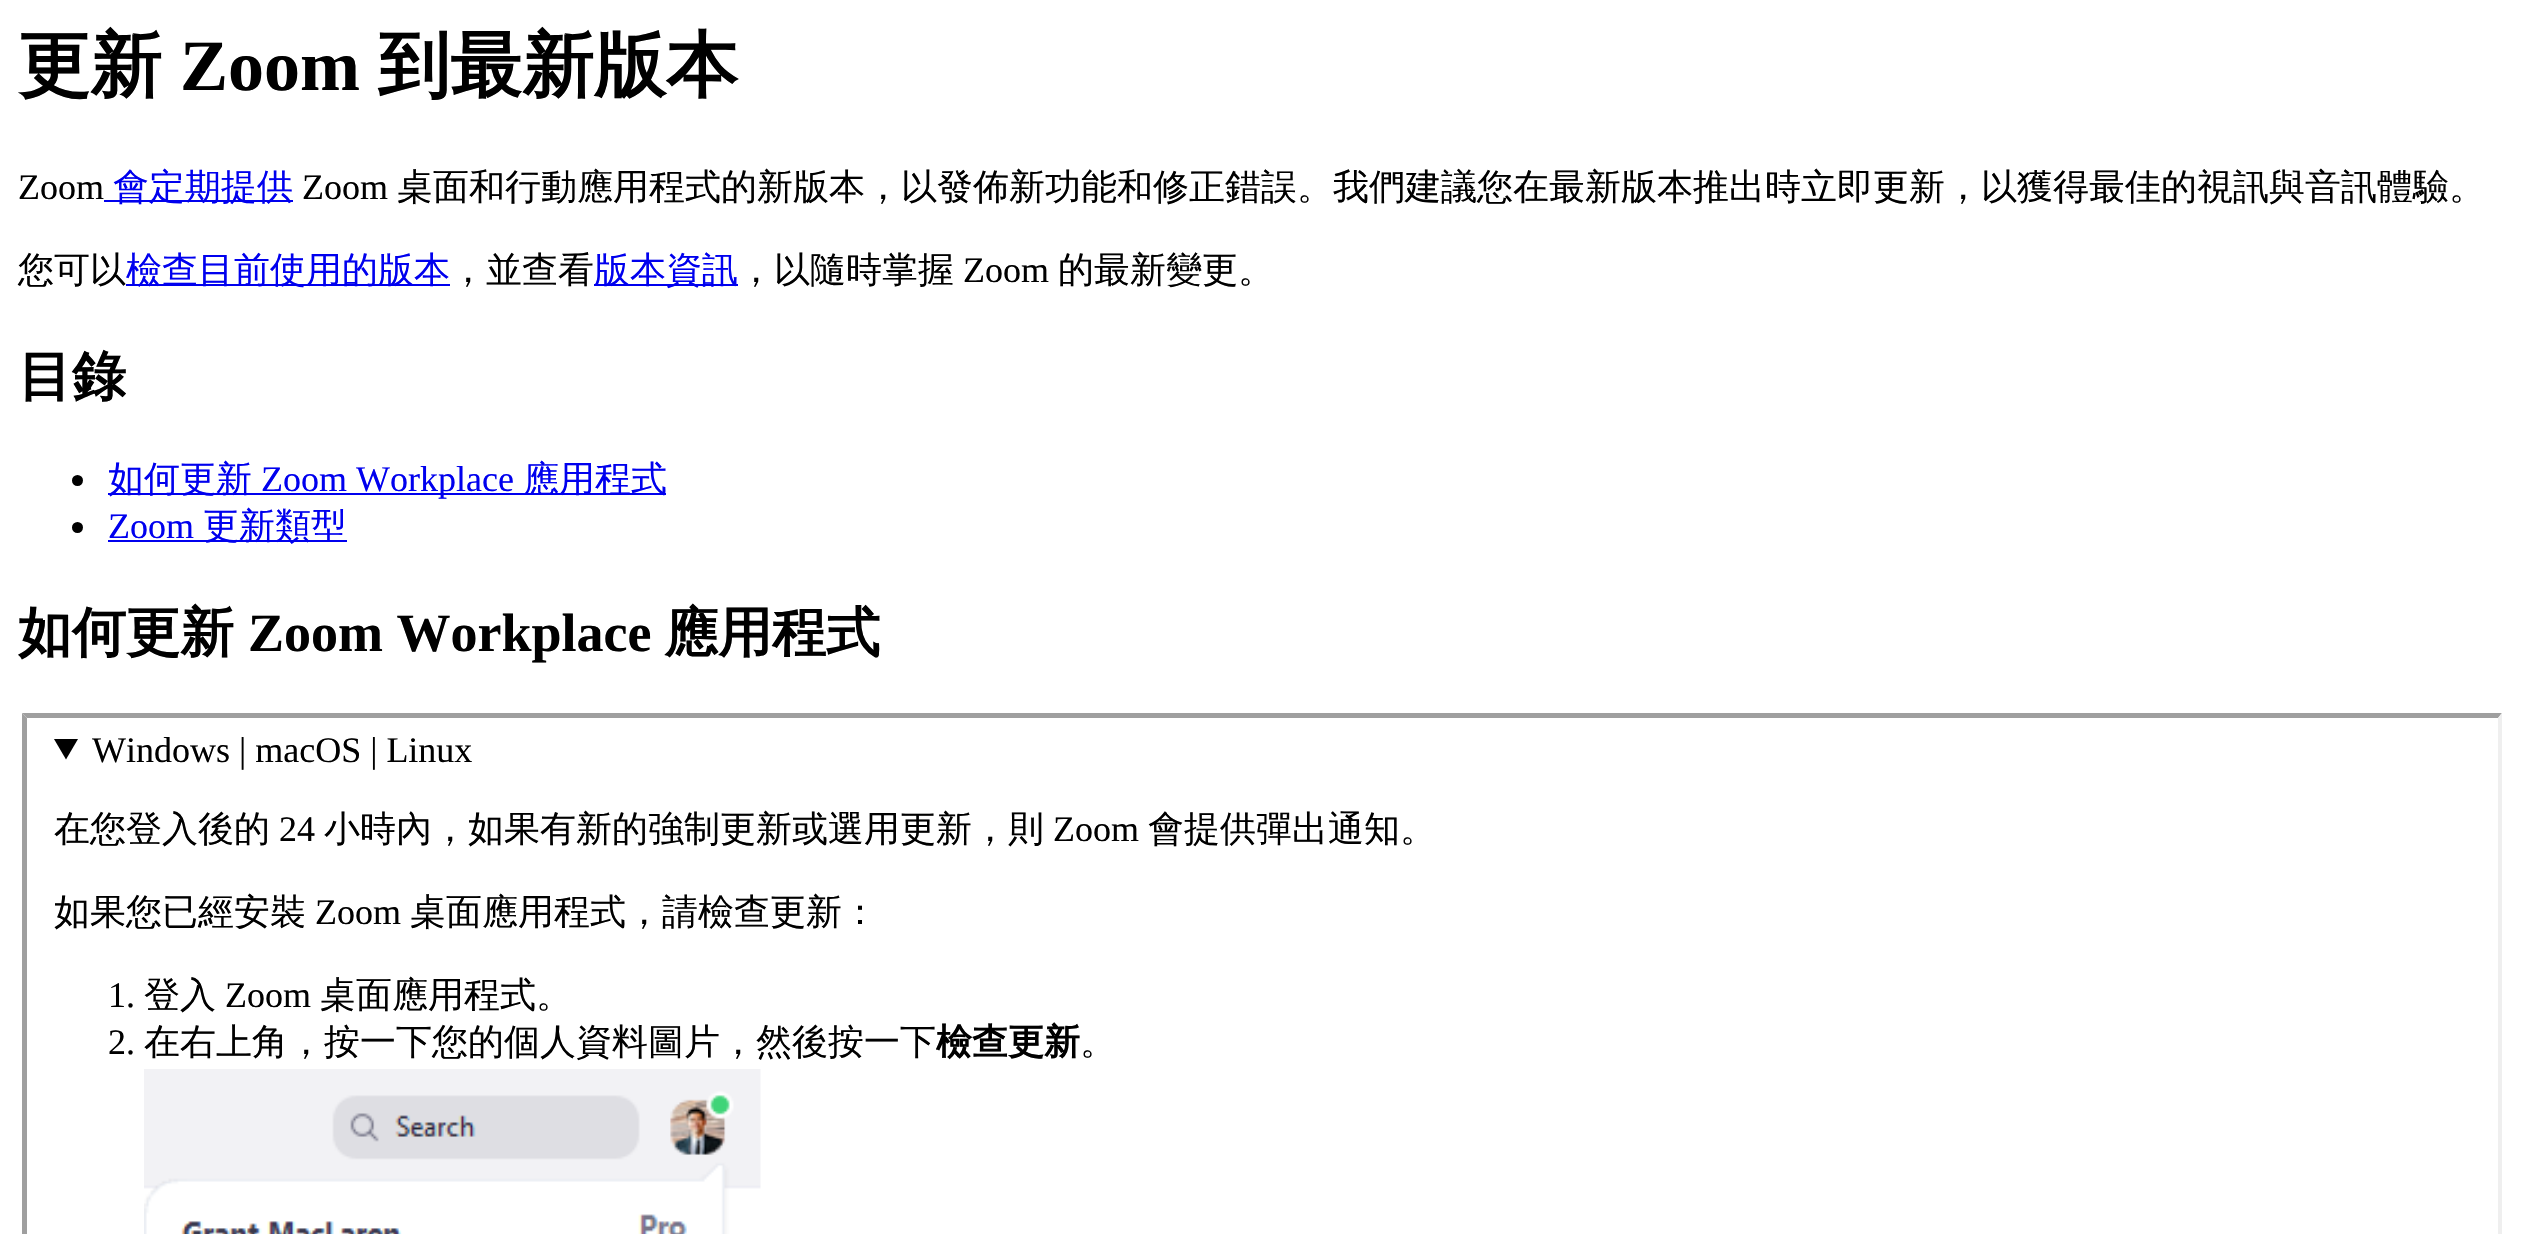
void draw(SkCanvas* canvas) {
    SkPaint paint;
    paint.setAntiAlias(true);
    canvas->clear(0xFFFFFFFF);
    SkFont font1(fontMgr->matchFamilyStyle("WenQuanYi Zen Hei", SkFontStyle::Bold()), 72);
    font1.setSubpixel(true);
    paint.setColor(0xFF000000);
    canvas->drawString("更新", 18, 90, font1, paint);
    SkFont font2(fontMgr->matchFamilyStyle("Liberation Serif", SkFontStyle::Bold()), 72);
    font2.setSubpixel(true);
    canvas->drawString("Zoom", 180, 90, font2, paint);
    canvas->drawString("到最新版本", 378, 90, font1, paint);
    SkFont font3(fontMgr->matchFamilyStyle("Liberation Serif", SkFontStyle::Normal()), 36);
    font3.setSubpixel(true);
    canvas->drawString("Zoom", 18, 199, font3, paint);
    paint.setColor(0xFF0000EE);
    canvas->drawRect(SkRect::MakeXYWH(104, 200, 189, 2), paint);
    SkFont font4(fontMgr->matchFamilyStyle("WenQuanYi Zen Hei", SkFontStyle(500, SkFontStyle::kNormal_Width, SkFontStyle::kUpright_Slant)), 36);
    font4.setSubpixel(true);
    canvas->drawString("會定期提供", 113, 199, font4, paint);
    paint.setColor(0xFF000000);
    canvas->drawString("Zoom", 302, 199, font3, paint);
    canvas->drawString("桌面和行動應用程式的新版本，以發佈新功能和修正錯誤。我們建議您在最新版本推出時立即更新，以獲得最佳的視訊與音訊體驗。", 397, 199, font4, paint);
    canvas->drawString("您可以", 18, 282, font4, paint);
    paint.setColor(0xFF0000EE);
    canvas->drawRect(SkRect::MakeXYWH(126, 284, 324, 2), paint);
    canvas->drawString("檢查目前使用的版本", 126, 282, font4, paint);
    paint.setColor(0xFF000000);
    canvas->drawString("，並查看", 450, 282, font4, paint);
    paint.setColor(0xFF0000EE);
    canvas->drawRect(SkRect::MakeXYWH(594, 284, 144, 2), paint);
    canvas->drawString("版本資訊", 594, 282, font4, paint);
    paint.setColor(0xFF000000);
    canvas->drawString("，以隨時掌握", 738, 282, font4, paint);
    canvas->drawString("Zoom", 963, 282, font3, paint);
    canvas->drawString("的最新變更。", 1058, 282, font4, paint);
    SkFont font5(fontMgr->matchFamilyStyle("WenQuanYi Zen Hei", SkFontStyle::Bold()), 54);
    font5.setSubpixel(true);
    canvas->drawString("目錄", 18, 395, font5, paint);
    canvas->drawCircle(77.5f, 480.5f, 5.5f, paint);
    paint.setColor(0xFF0000EE);
    canvas->drawRect(SkRect::MakeXYWH(108, 493, 558, 2), paint);
    canvas->drawString("如何更新", 108, 491, font4, paint);
    canvas->drawString("Zoom Workplace", 261, 491, font3, paint);
    canvas->drawString("應用程式", 523, 491, font4, paint);
    paint.setColor(0xFF000000);
    canvas->drawCircle(77.5f, 527.5f, 5.5f, paint);
    paint.setColor(0xFF0000EE);
    canvas->drawString("Zoom", 108, 538, font3, paint);
    canvas->drawRect(SkRect::MakeXYWH(108, 540, 239, 2), paint);
    canvas->drawString("更新類型", 203, 538, font4, paint);
    paint.setColor(0xFF000000);
    canvas->drawString("如何更新", 18, 651, font5, paint);
    SkFont font6(fontMgr->matchFamilyStyle("Liberation Serif", SkFontStyle::Bold()), 54);
    font6.setSubpixel(true);
    canvas->drawString("Zoom Workplace", 248, 651, font6, paint);
    canvas->drawString("應用程式", 664, 651, font5, paint);
    paint.setColor(0xFF9F9F9F);
    canvas->drawPath(SkPathBuilder().moveTo(22, 713).lineTo(2502, 713).lineTo(2498, 718).lineTo(27, 718).close().detach(), paint);
    paint.setColor(0xFFEFEFEF);
    canvas->drawPath(SkPathBuilder().moveTo(2502, 713).lineTo(2502, 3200).lineTo(2498, 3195).lineTo(2498, 718).close().detach(), paint);
    paint.setColor(0xFF9F9F9F);
    canvas->drawPath(SkPathBuilder().moveTo(22, 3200).lineTo(22, 713).lineTo(27, 718).lineTo(27, 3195).close().detach(), paint);
    paint.setColor(0xFF000000);
    canvas->drawPath(SkPathBuilder().moveTo(54, 739).lineTo(78, 739).lineTo(66, 759.5f).close().detach(), paint);
    canvas->drawString("Windows | macOS | Linux", 92, 762, font3, paint);
    canvas->drawString("在您登入後的", 54, 841, font4, paint);
    canvas->drawString("24", 279, 841, font3, paint);
    canvas->drawString("小時內，如果有新的強制更新或選用更新，則", 324, 841, font4, paint);
    canvas->drawString("Zoom", 1053, 841, font3, paint);
    canvas->drawString("會提供彈出通知。", 1148, 841, font4, paint);
    canvas->drawString("如果您已經安裝", 54, 924, font4, paint);
    canvas->drawString("Zoom", 315, 924, font3, paint);
    canvas->drawString("桌面應用程式，請檢查更新：", 410, 924, font4, paint);
    canvas->drawString("1.", 108, 1007, font3, paint);
    canvas->drawString("登入", 144, 1007, font4, paint);
    canvas->drawString("Zoom", 225, 1007, font3, paint);
    canvas->drawString("桌面應用程式。", 320, 1007, font4, paint);
    canvas->drawString("2.", 108, 1054, font3, paint);
    canvas->drawString("在右上角，按一下您的個人資料圖片，然後按一下", 144, 1054, font4, paint);
    SkFont font7(fontMgr->matchFamilyStyle("WenQuanYi Zen Hei", SkFontStyle::Bold()), 36);
    font7.setSubpixel(true);
    canvas->drawString("檢查更新", 936, 1054, font7, paint);
    canvas->drawString("。", 1080, 1054, font4, paint);
    canvas->drawImageRect(SkImages::DeferredFromEncodedData(SkData::MakeFromFileName("img1.png")), SkRect::MakeXYWH(144, 1069, 617, 165), SkSamplingOptions());
}
